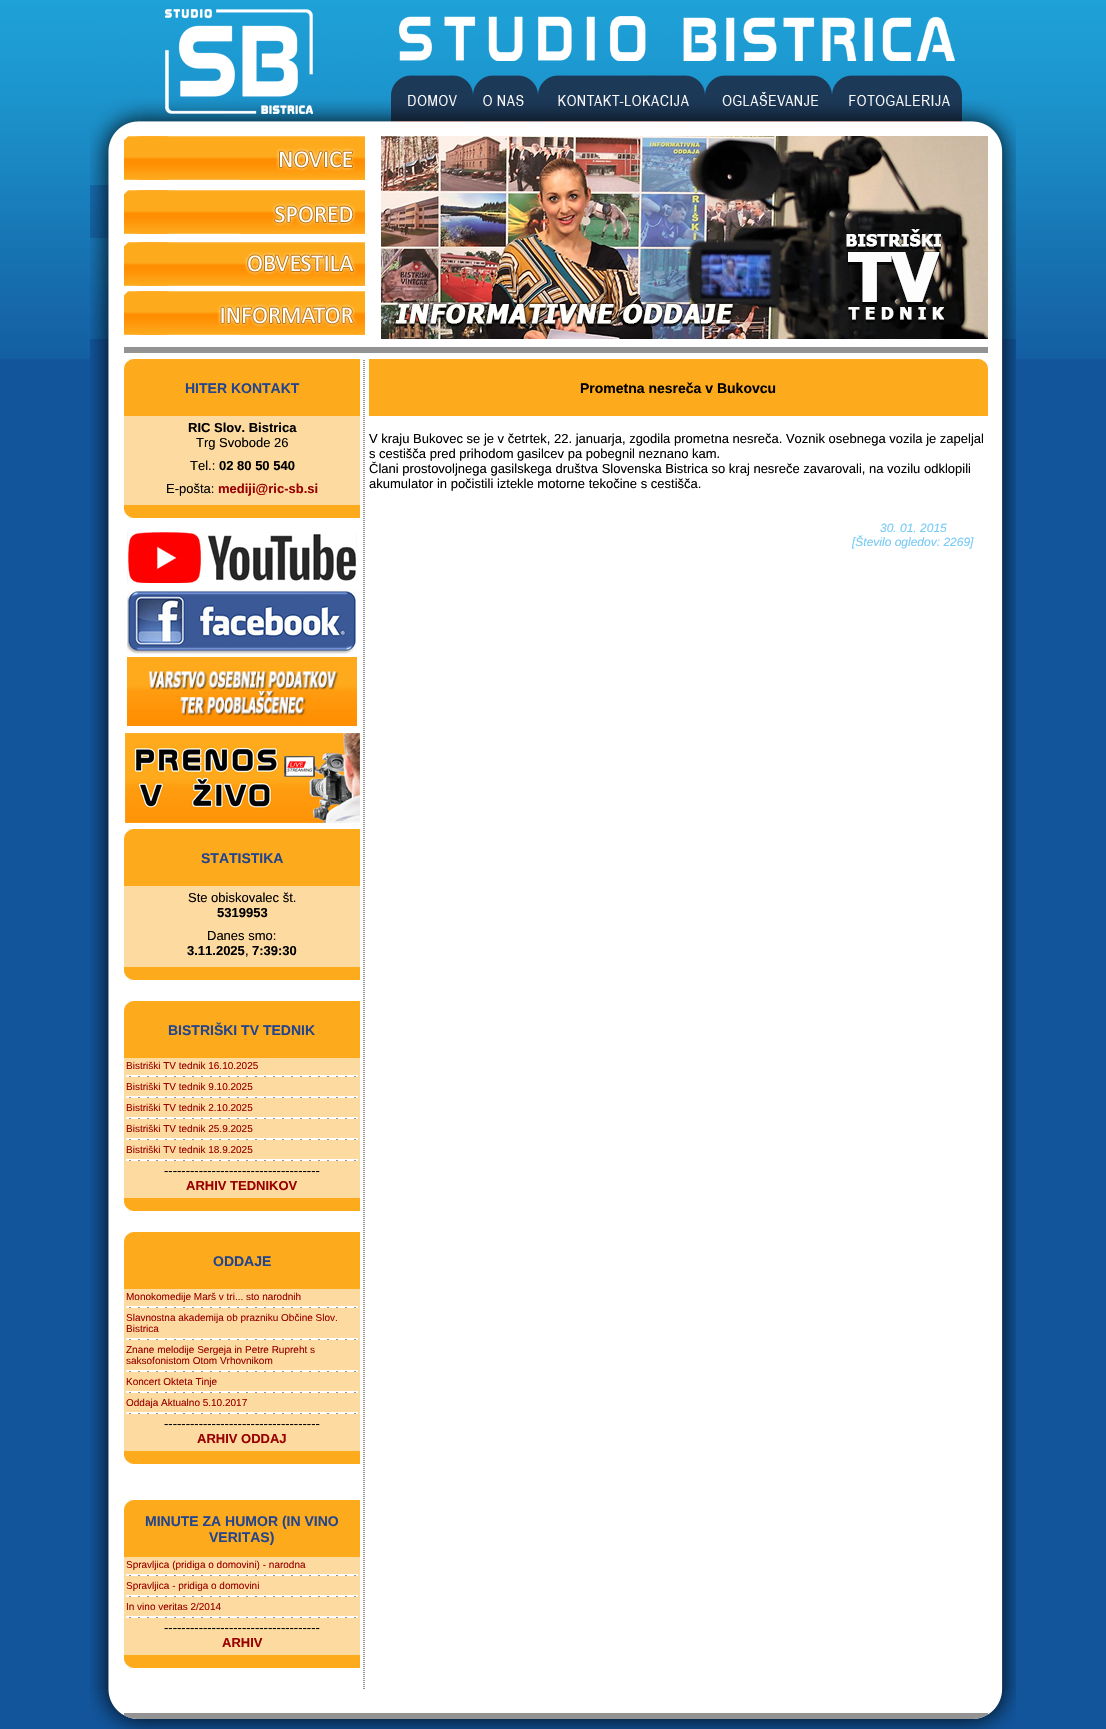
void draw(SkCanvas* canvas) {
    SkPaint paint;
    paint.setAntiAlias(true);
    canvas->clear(0xFF12559B);
    canvas->drawImageRect(SkImages::DeferredFromEncodedData(SkData::MakeFromFileName("img1.png")), SkRect::MakeXYWH(0, 0, 1106, 359), SkSamplingOptions());
    canvas->drawImageRect(SkImages::DeferredFromEncodedData(SkData::MakeFromFileName("img2.png")), SkRect::MakeXYWH(97, 9, 293, 112), SkSamplingOptions());
    canvas->drawImageRect(SkImages::DeferredFromEncodedData(SkData::MakeFromFileName("img3.png")), SkRect::MakeXYWH(399, 16, 556, 45), SkSamplingOptions());
    canvas->drawImageRect(SkImages::DeferredFromEncodedData(SkData::MakeFromFileName("img4.png")), SkRect::MakeXYWH(390, 75, 83, 46), SkSamplingOptions());
    canvas->drawImageRect(SkImages::DeferredFromEncodedData(SkData::MakeFromFileName("img5.png")), SkRect::MakeXYWH(473, 75, 65, 46), SkSamplingOptions());
    canvas->drawImageRect(SkImages::DeferredFromEncodedData(SkData::MakeFromFileName("img6.png")), SkRect::MakeXYWH(538, 75, 167, 46), SkSamplingOptions());
    canvas->drawImageRect(SkImages::DeferredFromEncodedData(SkData::MakeFromFileName("img7.png")), SkRect::MakeXYWH(705, 75, 127, 46), SkSamplingOptions());
    canvas->drawImageRect(SkImages::DeferredFromEncodedData(SkData::MakeFromFileName("img8.png")), SkRect::MakeXYWH(832, 75, 131, 46), SkSamplingOptions());
    canvas->drawImageRect(SkImages::DeferredFromEncodedData(SkData::MakeFromFileName("img9.png")), SkRect::MakeXYWH(963, 100, 50, 21), SkSamplingOptions());
    canvas->drawImageRect(SkImages::DeferredFromEncodedData(SkData::MakeFromFileName("img10.png")), SkRect::MakeXYWH(90, 121, 926, 15), SkSamplingOptions());
    paint.setColor(0xFFFFFFFF);
    canvas->drawRect(SkRect::MakeXYWH(365, 136, 632, 203), paint);
    canvas->drawImageRect(SkImages::DeferredFromEncodedData(SkData::MakeFromFileName("img11.png")), SkRect::MakeXYWH(90, 136, 275, 49), SkSamplingOptions());
    canvas->drawImageRect(SkImages::DeferredFromEncodedData(SkData::MakeFromFileName("img12.png")), SkRect::MakeXYWH(90, 185, 275, 53), SkSamplingOptions());
    canvas->drawImageRect(SkImages::DeferredFromEncodedData(SkData::MakeFromFileName("img13.png")), SkRect::MakeXYWH(90, 238, 275, 48), SkSamplingOptions());
    canvas->drawImageRect(SkImages::DeferredFromEncodedData(SkData::MakeFromFileName("img14.png")), SkRect::MakeXYWH(90, 286, 275, 53), SkSamplingOptions());
    canvas->drawImageRect(SkImages::DeferredFromEncodedData(SkData::MakeFromFileName("img15.png")), SkRect::MakeXYWH(381, 136, 607, 203), SkSamplingOptions());
    canvas->drawImageRect(SkImages::DeferredFromEncodedData(SkData::MakeFromFileName("img16.png")), SkRect::MakeXYWH(997, 136, 19, 203), SkSamplingOptions());
    canvas->drawImageRect(SkImages::DeferredFromEncodedData(SkData::MakeFromFileName("img17.png")), SkRect::MakeXYWH(90, 339, 926, 20), SkSamplingOptions());
    canvas->drawRect(SkRect::MakeXYWH(109, 359, 893, 1330), paint);
    canvas->drawImageRect(SkImages::DeferredFromEncodedData(SkData::MakeFromFileName("img18.png")), SkRect::MakeXYWH(90, 359, 19, 1330), SkSamplingOptions());
    canvas->drawImageRect(SkImages::DeferredFromEncodedData(SkData::MakeFromFileName("img19.png")), SkRect::MakeXYWH(124, 359, 236, 57), SkSamplingOptions());
    SkFont font1(fontMgr->matchFamilyStyle("Liberation Sans", SkFontStyle::Bold()), 14);
    font1.setSubpixel(true);
    paint.setColor(0xFF23458B);
    canvas->drawString("HITER KONTAKT", 185, 393, font1, paint);
    paint.setColor(0xFFFDDBA0);
    canvas->drawRect(SkRect::MakeXYWH(124, 416, 236, 84), paint);
    SkFont font2(fontMgr->matchFamilyStyle("Liberation Sans", SkFontStyle::Bold()), 13);
    font2.setSubpixel(true);
    paint.setColor(0xFF000000);
    canvas->drawString("RIC Slov. Bistrica", 188, 432, font2, paint);
    SkFont font3(fontMgr->matchFamilyStyle("Liberation Sans", SkFontStyle::Normal()), 13);
    font3.setSubpixel(true);
    canvas->drawString("Trg Svobode 26", 196, 447, font3, paint);
    canvas->drawString("Tel.:", 190, 470, font3, paint);
    canvas->drawString("02 80 50 540", 219, 470, font2, paint);
    canvas->drawString("E-pošta:", 166, 493, font3, paint);
    paint.setColor(0xFF990000);
    canvas->drawString("mediji@ric-sb.si", 218, 493, font2, paint);
    canvas->drawImageRect(SkImages::DeferredFromEncodedData(SkData::MakeFromFileName("img20.png")), SkRect::MakeXYWH(124, 500, 236, 18), SkSamplingOptions());
    canvas->drawImageRect(SkImages::DeferredFromEncodedData(SkData::MakeFromFileName("img21.png")), SkRect::MakeXYWH(127, 532, 230, 51), SkSamplingOptions());
    canvas->drawImageRect(SkImages::DeferredFromEncodedData(SkData::MakeFromFileName("img22.png")), SkRect::MakeXYWH(127, 590, 230, 64), SkSamplingOptions());
    canvas->drawImageRect(SkImages::DeferredFromEncodedData(SkData::MakeFromFileName("img23.png")), SkRect::MakeXYWH(127, 657, 230, 69), SkSamplingOptions());
    canvas->drawImageRect(SkImages::DeferredFromEncodedData(SkData::MakeFromFileName("img24.png")), SkRect::MakeXYWH(125, 733, 235, 90), SkSamplingOptions());
    canvas->drawImageRect(SkImages::DeferredFromEncodedData(SkData::MakeFromFileName("img19.png")), SkRect::MakeXYWH(124, 829, 236, 57), SkSamplingOptions());
    paint.setColor(0xFF23458B);
    canvas->drawString("STATISTIKA", 201, 863, font1, paint);
    paint.setColor(0xFFFDDBA0);
    canvas->drawRect(SkRect::MakeXYWH(124, 886, 236, 76), paint);
    paint.setColor(0xFF000000);
    canvas->drawString("Ste obiskovalec št.", 188, 902, font3, paint);
    canvas->drawString("5319953", 217, 917, font2, paint);
    canvas->drawString("Danes smo:", 207, 940, font3, paint);
    canvas->drawString("3.11.2025", 187, 955, font2, paint);
    canvas->drawString(",", 245, 955, font3, paint);
    canvas->drawString("7:39:30", 252, 955, font2, paint);
    canvas->drawImageRect(SkImages::DeferredFromEncodedData(SkData::MakeFromFileName("img20.png")), SkRect::MakeXYWH(124, 962, 236, 18), SkSamplingOptions());
    canvas->drawImageRect(SkImages::DeferredFromEncodedData(SkData::MakeFromFileName("img19.png")), SkRect::MakeXYWH(124, 1001, 236, 57), SkSamplingOptions());
    paint.setColor(0xFF23458B);
    canvas->drawString("BISTRIŠKI TV TEDNIK", 168, 1035, font1, paint);
    paint.setColor(0xFFFDDBA0);
    canvas->drawRect(SkRect::MakeXYWH(124, 1058, 236, 135), paint);
    SkFont font4(fontMgr->matchFamilyStyle("Liberation Sans", SkFontStyle::Normal()), 10);
    font4.setSubpixel(true);
    paint.setColor(0xFF990000);
    canvas->drawString("Bistriški TV tednik 16.10.2025", 126, 1069, font4, paint);
    canvas->drawImageRect(SkImages::DeferredFromEncodedData(SkData::MakeFromFileName("img25.png")), SkRect::MakeXYWH(126, 1075, 232, 2), SkSamplingOptions());
    canvas->drawString("Bistriški TV tednik 9.10.2025", 126, 1090, font4, paint);
    canvas->drawImageRect(SkImages::DeferredFromEncodedData(SkData::MakeFromFileName("img25.png")), SkRect::MakeXYWH(126, 1096, 232, 2), SkSamplingOptions());
    canvas->drawString("Bistriški TV tednik 2.10.2025", 126, 1111, font4, paint);
    canvas->drawImageRect(SkImages::DeferredFromEncodedData(SkData::MakeFromFileName("img25.png")), SkRect::MakeXYWH(126, 1117, 232, 2), SkSamplingOptions());
    canvas->drawString("Bistriški TV tednik 25.9.2025", 126, 1132, font4, paint);
    canvas->drawImageRect(SkImages::DeferredFromEncodedData(SkData::MakeFromFileName("img25.png")), SkRect::MakeXYWH(126, 1138, 232, 2), SkSamplingOptions());
    canvas->drawString("Bistriški TV tednik 18.9.2025", 126, 1153, font4, paint);
    canvas->drawImageRect(SkImages::DeferredFromEncodedData(SkData::MakeFromFileName("img25.png")), SkRect::MakeXYWH(126, 1159, 232, 2), SkSamplingOptions());
    paint.setColor(0xFF000000);
    canvas->drawString("------------------------------------", 164, 1175, font3, paint);
    paint.setColor(0xFF990000);
    canvas->drawString("ARHIV TEDNIKOV", 186, 1190, font2, paint);
    canvas->drawImageRect(SkImages::DeferredFromEncodedData(SkData::MakeFromFileName("img20.png")), SkRect::MakeXYWH(124, 1193, 236, 18), SkSamplingOptions());
    canvas->drawImageRect(SkImages::DeferredFromEncodedData(SkData::MakeFromFileName("img19.png")), SkRect::MakeXYWH(124, 1232, 236, 57), SkSamplingOptions());
    paint.setColor(0xFF23458B);
    canvas->drawString("ODDAJE", 213, 1266, font1, paint);
    paint.setColor(0xFFFDDBA0);
    canvas->drawRect(SkRect::MakeXYWH(124, 1289, 236, 157), paint);
    paint.setColor(0xFF990000);
    canvas->drawString("Monokomedije Marš v tri... sto narodnih", 126, 1300, font4, paint);
    canvas->drawImageRect(SkImages::DeferredFromEncodedData(SkData::MakeFromFileName("img25.png")), SkRect::MakeXYWH(126, 1306, 232, 2), SkSamplingOptions());
    canvas->drawString("Slavnostna akademija ob prazniku Občine Slov.", 126, 1321, font4, paint);
    canvas->drawString("Bistrica", 126, 1332, font4, paint);
    canvas->drawImageRect(SkImages::DeferredFromEncodedData(SkData::MakeFromFileName("img25.png")), SkRect::MakeXYWH(126, 1338, 232, 2), SkSamplingOptions());
    canvas->drawString("Znane melodije Sergeja in Petre Rupreht s", 126, 1353, font4, paint);
    canvas->drawString("saksofonistom Otom Vrhovnikom", 126, 1364, font4, paint);
    canvas->drawImageRect(SkImages::DeferredFromEncodedData(SkData::MakeFromFileName("img25.png")), SkRect::MakeXYWH(126, 1370, 232, 2), SkSamplingOptions());
    canvas->drawString("Koncert Okteta Tinje", 126, 1385, font4, paint);
    canvas->drawImageRect(SkImages::DeferredFromEncodedData(SkData::MakeFromFileName("img25.png")), SkRect::MakeXYWH(126, 1391, 232, 2), SkSamplingOptions());
    canvas->drawString("Oddaja Aktualno 5.10.2017", 126, 1406, font4, paint);
    canvas->drawImageRect(SkImages::DeferredFromEncodedData(SkData::MakeFromFileName("img25.png")), SkRect::MakeXYWH(126, 1412, 232, 2), SkSamplingOptions());
    paint.setColor(0xFF000000);
    canvas->drawString("------------------------------------", 164, 1428, font3, paint);
    paint.setColor(0xFF990000);
    canvas->drawString("ARHIV ODDAJ", 197, 1443, font2, paint);
    canvas->drawImageRect(SkImages::DeferredFromEncodedData(SkData::MakeFromFileName("img20.png")), SkRect::MakeXYWH(124, 1446, 236, 18), SkSamplingOptions());
    canvas->drawImageRect(SkImages::DeferredFromEncodedData(SkData::MakeFromFileName("img19.png")), SkRect::MakeXYWH(124, 1500, 236, 57), SkSamplingOptions());
    paint.setColor(0xFF23458B);
    canvas->drawString("MINUTE ZA HUMOR (IN VINO", 145, 1526, font1, paint);
    canvas->drawString("VERITAS)", 209, 1542, font1, paint);
    paint.setColor(0xFFFDDBA0);
    canvas->drawRect(SkRect::MakeXYWH(124, 1557, 236, 93), paint);
    paint.setColor(0xFF990000);
    canvas->drawString("Spravljica (pridiga o domovini) - narodna", 126, 1568, font4, paint);
    canvas->drawImageRect(SkImages::DeferredFromEncodedData(SkData::MakeFromFileName("img25.png")), SkRect::MakeXYWH(126, 1574, 232, 2), SkSamplingOptions());
    canvas->drawString("Spravljica - pridiga o domovini", 126, 1589, font4, paint);
    canvas->drawImageRect(SkImages::DeferredFromEncodedData(SkData::MakeFromFileName("img25.png")), SkRect::MakeXYWH(126, 1595, 232, 2), SkSamplingOptions());
    canvas->drawString("In vino veritas 2/2014", 126, 1610, font4, paint);
    canvas->drawImageRect(SkImages::DeferredFromEncodedData(SkData::MakeFromFileName("img25.png")), SkRect::MakeXYWH(126, 1616, 232, 2), SkSamplingOptions());
    paint.setColor(0xFF000000);
    canvas->drawString("------------------------------------", 164, 1632, font3, paint);
    paint.setColor(0xFF990000);
    canvas->drawString("ARHIV", 222, 1647, font2, paint);
    canvas->drawImageRect(SkImages::DeferredFromEncodedData(SkData::MakeFromFileName("img20.png")), SkRect::MakeXYWH(124, 1650, 236, 18), SkSamplingOptions());
    canvas->drawImageRect(SkImages::DeferredFromEncodedData(SkData::MakeFromFileName("img26.png")), SkRect::MakeXYWH(363, 360, 2, 1329), SkSamplingOptions());
    canvas->drawImageRect(SkImages::DeferredFromEncodedData(SkData::MakeFromFileName("img27.png")), SkRect::MakeXYWH(369, 359, 619, 57), SkSamplingOptions());
    paint.setColor(0xFF000000);
    canvas->drawString("Prometna nesreča v Bukovcu", 580, 393, font1, paint);
    canvas->drawString("V kraju Bukovec se je v četrtek, 22. januarja, zgodila prometna nesreča. Voznik osebnega vozila je zapeljal", 369, 443, font3, paint);
    canvas->drawString("s cestišča pred prihodom gasilcev pa pobegnil neznano kam.", 369, 458, font3, paint);
    canvas->drawString("Člani prostovoljnega gasilskega društva Slovenska Bistrica so kraj nesreče zavarovali, na vozilu odklopili", 369, 473, font3, paint);
    canvas->drawString("akumulator in počistili iztekle motorne tekočine s cestišča.", 369, 488, font3, paint);
    SkFont font5(fontMgr->matchFamilyStyle("Liberation Sans", SkFontStyle::Italic()), 12);
    font5.setSubpixel(true);
    paint.setColor(0xFF79CBF7);
    canvas->drawString("30. 01. 2015", 880, 532, font5, paint);
    canvas->drawString("[Število ogledov: 2269]", 852, 546, font5, paint);
    canvas->drawImageRect(SkImages::DeferredFromEncodedData(SkData::MakeFromFileName("img28.png")), SkRect::MakeXYWH(1002, 359, 14, 1330), SkSamplingOptions());
    canvas->drawImageRect(SkImages::DeferredFromEncodedData(SkData::MakeFromFileName("img29.png")), SkRect::MakeXYWH(90, 1689, 926, 40), SkSamplingOptions());
}
